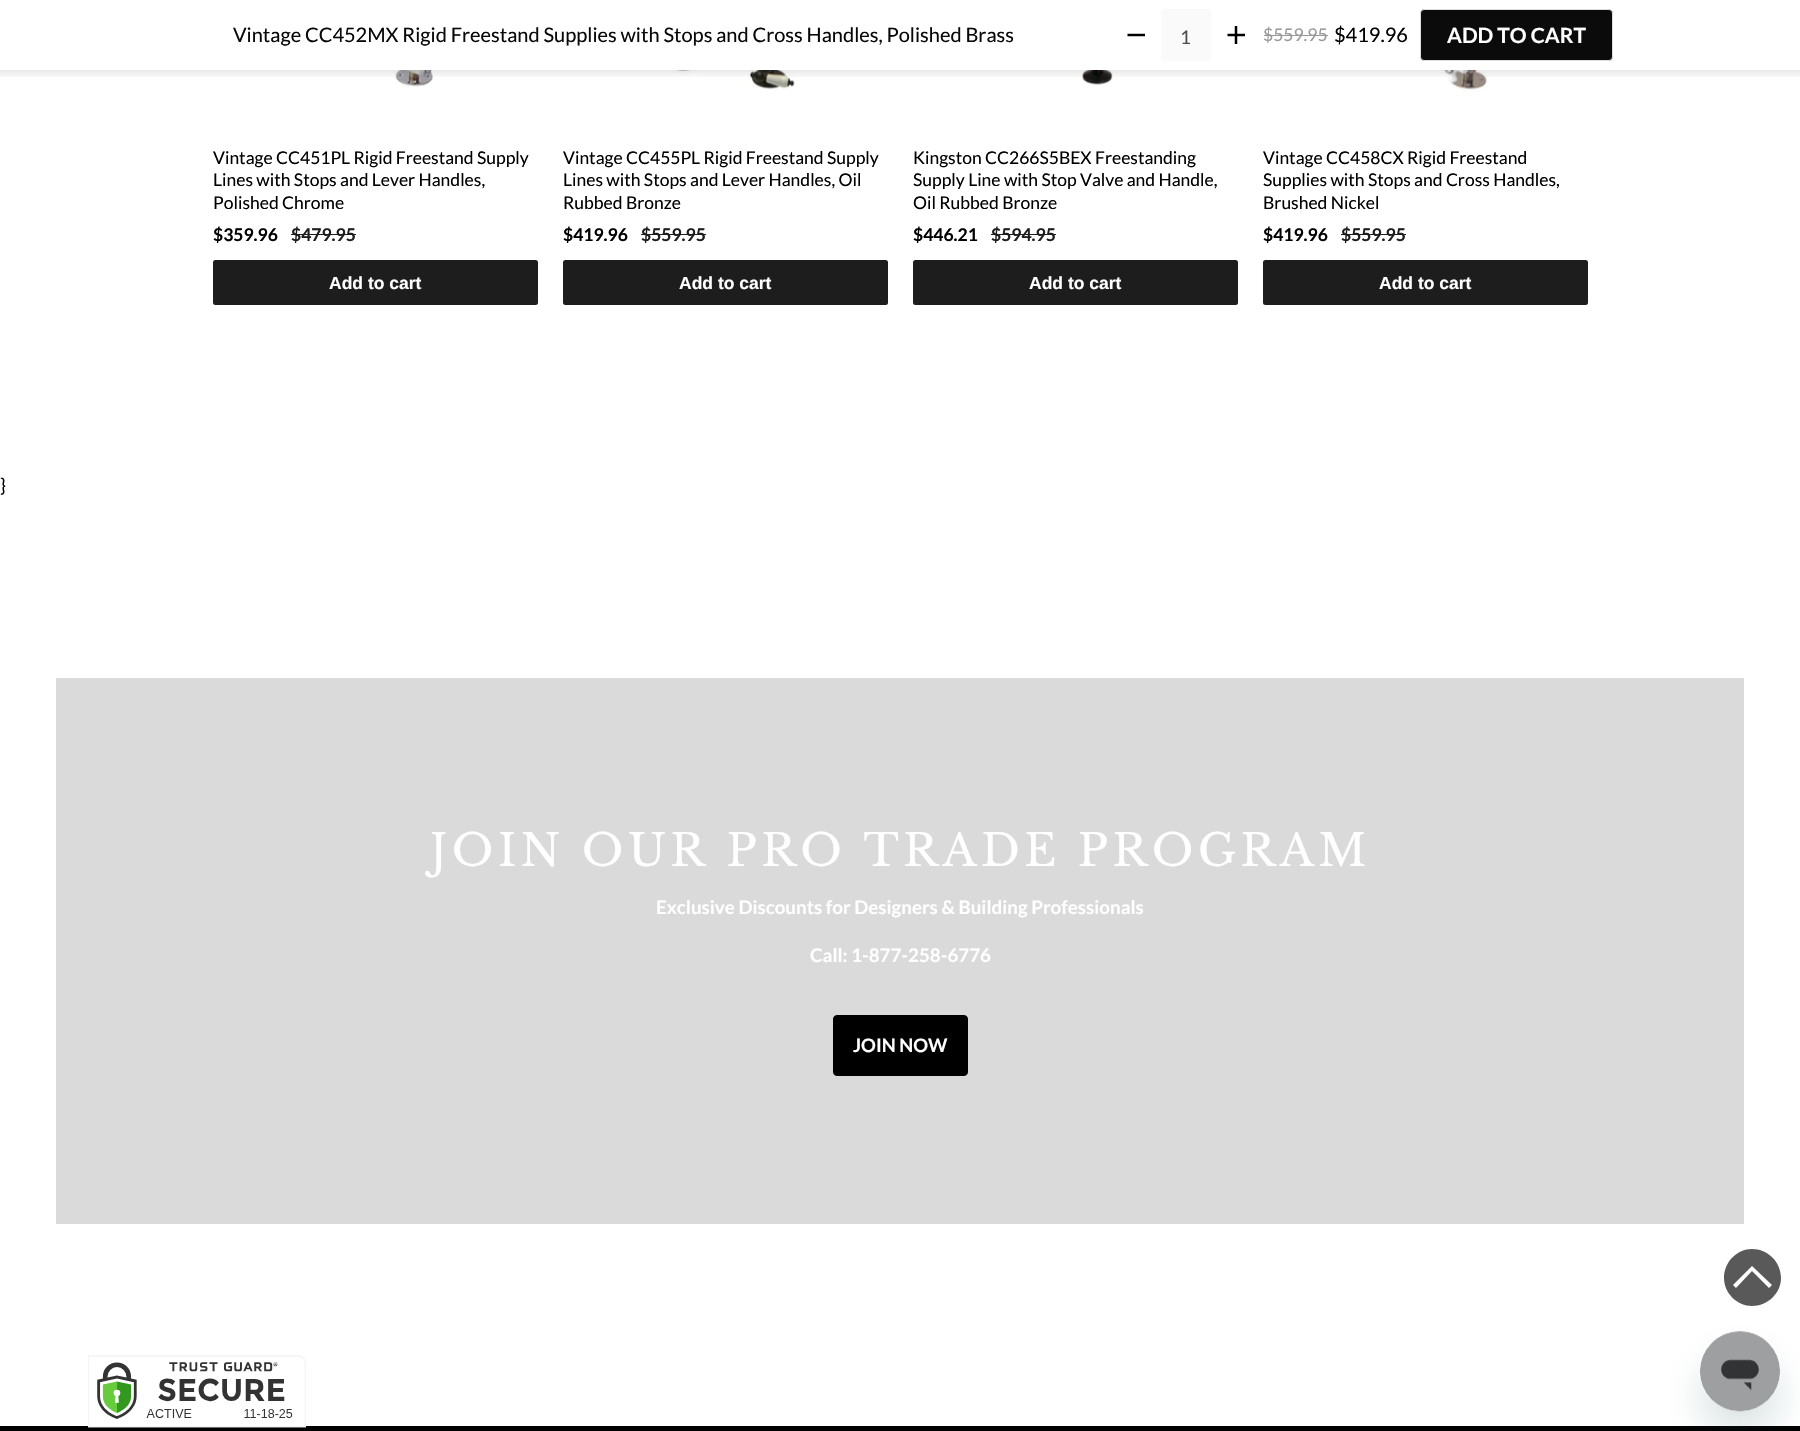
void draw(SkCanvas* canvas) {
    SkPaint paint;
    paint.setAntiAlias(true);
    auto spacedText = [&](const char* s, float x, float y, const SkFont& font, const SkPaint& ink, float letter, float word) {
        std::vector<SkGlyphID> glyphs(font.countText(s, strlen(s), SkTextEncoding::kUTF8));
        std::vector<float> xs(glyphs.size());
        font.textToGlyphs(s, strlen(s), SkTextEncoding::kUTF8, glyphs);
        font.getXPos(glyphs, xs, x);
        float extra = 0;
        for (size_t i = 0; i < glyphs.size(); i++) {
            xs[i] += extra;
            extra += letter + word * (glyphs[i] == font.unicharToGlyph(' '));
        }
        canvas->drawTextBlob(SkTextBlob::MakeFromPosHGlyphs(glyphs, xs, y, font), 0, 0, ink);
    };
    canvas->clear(0xFFFFFFFF);
    SkFont font1(fontMgr->matchFamilyStyle("Lato", SkFontStyle::Normal()), 20);
    font1.setSubpixel(true);
    paint.setColor(0xFF080808);
    canvas->drawString("Vintage CC452MX Rigid Freestand Supplies with Stops and Cross Handles, Polished Brass", 233, 42, font1, paint);
    paint.setStyle(SkPaint::kStroke_Style);
    paint.setStrokeWidth(2.5f);
    paint.setColor(0xFF000000);
    canvas->drawPath(SkPathBuilder().moveTo(1127.5f, 35).lineTo(1145, 35).detach(), paint);
    paint.setStyle(SkPaint::kFill_Style);
    paint.setColor(0xFFFAFAFA);
    canvas->drawRoundRect(SkRect::MakeXYWH(1161, 9, 50, 52), 4, 4, paint);
    SkFont font2(fontMgr->matchFamilyStyle("Lato", SkFontStyle::Normal()), 18.75f);
    font2.setSubpixel(true);
    paint.setColor(0xFF4D4D4D);
    canvas->drawString("1", 1180, 44, font2, paint);
    paint.setStyle(SkPaint::kStroke_Style);
    paint.setColor(0xFF000000);
    canvas->drawPath(SkPathBuilder().moveTo(1227.5f, 35).lineTo(1245, 35).moveTo(1236, 26).lineTo(1236, 44).detach(), paint);
    SkFont font3(fontMgr->matchFamilyStyle("Lato", SkFontStyle::Normal()), 17.5f);
    font3.setSubpixel(true);
    paint.setStyle(SkPaint::kFill_Style);
    paint.setColor(0xFF999999);
    canvas->drawString("$559.95", 1263, 41, font3, paint);
    canvas->drawRect(SkRect::MakeXYWH(1264, 35, 64, 1), paint);
    paint.setColor(0xFF000000);
    canvas->drawString("$419.96", 1334, 42, font1, paint);
    paint.setColor(0xFF0B0B0B);
    canvas->drawRoundRect(SkRect::MakeXYWH(1420.5f, 9.5f, 192, 51), 3.5f, 3.5f, paint);
    paint.setStyle(SkPaint::kStroke_Style);
    paint.setStrokeWidth(1);
    paint.setColor(0xFFDDDDDD);
    canvas->drawRoundRect(SkRect::MakeXYWH(1420.5f, 9.5f, 192, 51), 3.5f, 3.5f, paint);
    SkFont font4(fontMgr->matchFamilyStyle("Lato", SkFontStyle::Bold()), 21);
    font4.setSubpixel(true);
    paint.setStyle(SkPaint::kFill_Style);
    paint.setColor(0xFFFFFFFF);
    canvas->drawString("ADD TO CART", 1447, 43, font4, paint);
    canvas->drawImageRect(SkImages::DeferredFromEncodedData(SkData::MakeFromFileName("img1.png")), SkRect::MakeXYWH(294, 70, 139, 17), SkSamplingOptions());
    canvas->drawImageRect(SkImages::DeferredFromEncodedData(SkData::MakeFromFileName("img2.png")), SkRect::MakeXYWH(642, 70, 154, 20), SkSamplingOptions());
    canvas->drawImageRect(SkImages::DeferredFromEncodedData(SkData::MakeFromFileName("img3.png")), SkRect::MakeXYWH(1024, 70, 89, 16), SkSamplingOptions());
    canvas->drawImageRect(SkImages::DeferredFromEncodedData(SkData::MakeFromFileName("img4.png")), SkRect::MakeXYWH(1361, 70, 128, 21), SkSamplingOptions());
    {
        const SkColor colors[] = {0x17000000, 0x00000000};
        const float stops[] = {0, 1};
        const SkPoint ends[] = {{900, 70}, {900, 79}};
        paint.setShader(SkGradientShader::MakeLinear(ends, colors, stops, 2, SkTileMode::kClamp));
        paint.setAlpha(255);
    }
    canvas->drawRect(SkRect::MakeXYWH(0, 70, 1800, 7), paint);
    paint.setShader(nullptr);
    paint.setColor(0xFF000000);
    canvas->drawString("Vintage CC451PL Rigid Freestand Supply", 213, 164, font3, paint);
    canvas->drawString("Lines with Stops and Lever Handles,", 213, 186, font3, paint);
    canvas->drawString("Polished Chrome", 213, 209, font3, paint);
    SkFont font5(fontMgr->matchFamilyStyle("Lato", SkFontStyle::Bold()), 17.5f);
    font5.setSubpixel(true);
    canvas->drawString("$359.96", 213, 241, font5, paint);
    paint.setColor(0xFF1C1D1D);
    canvas->drawString("$479.95", 291, 241, font5, paint);
    canvas->drawRect(SkRect::MakeXYWH(291, 234, 65, 1), paint);
    paint.setColor(0xFF1D1D1D);
    canvas->drawRoundRect(SkRect::MakeXYWH(213, 260, 325, 45), 2.5f, 2.5f, paint);
    SkFont font6(fontMgr->matchFamilyStyle("Liberation Sans", SkFontStyle::Bold()), 17.5f);
    font6.setSubpixel(true);
    paint.setColor(0xFFFFFFFF);
    canvas->drawString("Add to cart", 329, 289, font6, paint);
    paint.setColor(0xFF000000);
    canvas->drawString("Vintage CC455PL Rigid Freestand Supply", 563, 164, font3, paint);
    canvas->drawString("Lines with Stops and Lever Handles, Oil", 563, 186, font3, paint);
    canvas->drawString("Rubbed Bronze", 563, 209, font3, paint);
    canvas->drawString("$419.96", 563, 241, font5, paint);
    paint.setColor(0xFF1C1D1D);
    canvas->drawString("$559.95", 641, 241, font5, paint);
    canvas->drawRect(SkRect::MakeXYWH(641, 234, 65, 1), paint);
    paint.setColor(0xFF1D1D1D);
    canvas->drawRoundRect(SkRect::MakeXYWH(563, 260, 325, 45), 2.5f, 2.5f, paint);
    paint.setColor(0xFFFFFFFF);
    canvas->drawString("Add to cart", 679, 289, font6, paint);
    paint.setColor(0xFF000000);
    canvas->drawString("Kingston CC266S5BEX Freestanding", 913, 164, font3, paint);
    canvas->drawString("Supply Line with Stop Valve and Handle,", 913, 186, font3, paint);
    canvas->drawString("Oil Rubbed Bronze", 913, 209, font3, paint);
    canvas->drawString("$446.21", 913, 241, font5, paint);
    paint.setColor(0xFF1C1D1D);
    canvas->drawString("$594.95", 991, 241, font5, paint);
    canvas->drawRect(SkRect::MakeXYWH(991, 234, 65, 1), paint);
    paint.setColor(0xFF1D1D1D);
    canvas->drawRoundRect(SkRect::MakeXYWH(913, 260, 325, 45), 2.5f, 2.5f, paint);
    paint.setColor(0xFFFFFFFF);
    canvas->drawString("Add to cart", 1029, 289, font6, paint);
    paint.setColor(0xFF000000);
    canvas->drawString("Vintage CC458CX Rigid Freestand", 1263, 164, font3, paint);
    canvas->drawString("Supplies with Stops and Cross Handles,", 1263, 186, font3, paint);
    canvas->drawString("Brushed Nickel", 1263, 209, font3, paint);
    canvas->drawString("$419.96", 1263, 241, font5, paint);
    paint.setColor(0xFF1C1D1D);
    canvas->drawString("$559.95", 1341, 241, font5, paint);
    canvas->drawRect(SkRect::MakeXYWH(1341, 234, 65, 1), paint);
    paint.setColor(0xFF1D1D1D);
    canvas->drawRoundRect(SkRect::MakeXYWH(1263, 260, 325, 45), 2.5f, 2.5f, paint);
    paint.setColor(0xFFFFFFFF);
    canvas->drawString("Add to cart", 1379, 289, font6, paint);
    paint.setColor(0xFF000000);
    canvas->drawString("}", 0, 492, font2, paint);
    paint.setColor(0xFFDADADA);
    canvas->drawRect(SkRect::MakeXYWH(56, 678, 1688, 546), paint);
    SkFont font7(fontMgr->matchFamilyStyle("Libre Baskerville", SkFontStyle::Normal()), 44.1f);
    font7.setSubpixel(true);
    paint.setColor(0xFFFFFFFF);
    spacedText("JOIN OUR PRO TRADE PROGRAM", 430, 866, font7, paint, 4.4f, 0);
    SkFont font8(fontMgr->matchFamilyStyle("Lato", SkFontStyle::Bold()), 18.75f);
    font8.setSubpixel(true);
    canvas->drawString("Exclusive Discounts for Designers & Building Professionals", 656, 914, font8, paint);
    canvas->drawString("Call: 1-877-258-6776", 810, 962, font8, paint);
    paint.setColor(0xFF000000);
    canvas->drawRoundRect(SkRect::MakeXYWH(833.5f, 1015.5f, 134, 60), 3.5f, 3.5f, paint);
    paint.setStyle(SkPaint::kStroke_Style);
    canvas->drawRoundRect(SkRect::MakeXYWH(833.5f, 1015.5f, 134, 60), 3.5f, 3.5f, paint);
    SkFont font9(fontMgr->matchFamilyStyle("Lato", SkFontStyle::Bold()), 18.5f);
    font9.setSubpixel(true);
    paint.setStyle(SkPaint::kFill_Style);
    paint.setColor(0xFFFFFFFF);
    canvas->drawString("JOIN NOW", 853, 1052, font9, paint);
    paint.setColor(0xFF595959);
    canvas->drawPath(SkPathBuilder(SkPathFillType::kEvenOdd).moveTo(1752, 1249).cubicTo(1737, 1249, 1724, 1262, 1724, 1278).cubicTo(1724, 1293, 1737, 1306, 1752, 1306).cubicTo(1768, 1306, 1781, 1293, 1781, 1278).cubicTo(1781, 1262, 1768, 1249, 1752, 1249).close().moveTo(1769, 1288).lineTo(1752, 1271).lineTo(1736, 1288).lineTo(1733, 1285).lineTo(1752, 1266).lineTo(1772, 1285).close().detach(), paint);
    paint.setColor(0xFF000000);
    canvas->drawRect(SkRect::MakeXYWH(0, 1426, 1800, 5), paint);
    paint.setColor(0x2617494D);
    paint.setMaskFilter(SkMaskFilter::MakeBlur(kNormal_SkBlurStyle, 19));
    canvas->drawRoundRect(SkRect::MakeXYWH(1700, 1356, 80, 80), 40, 40, paint);
    paint.setMaskFilter(nullptr);
    canvas->drawImageRect(SkImages::DeferredFromEncodedData(SkData::MakeFromFileName("img5.png")), SkRect::MakeXYWH(1700, 1331, 80, 81), SkSamplingOptions());
    canvas->drawImageRect(SkImages::DeferredFromEncodedData(SkData::MakeFromFileName("img6.png")), SkRect::MakeXYWH(88, 1355, 218, 73), SkSamplingOptions());
}
